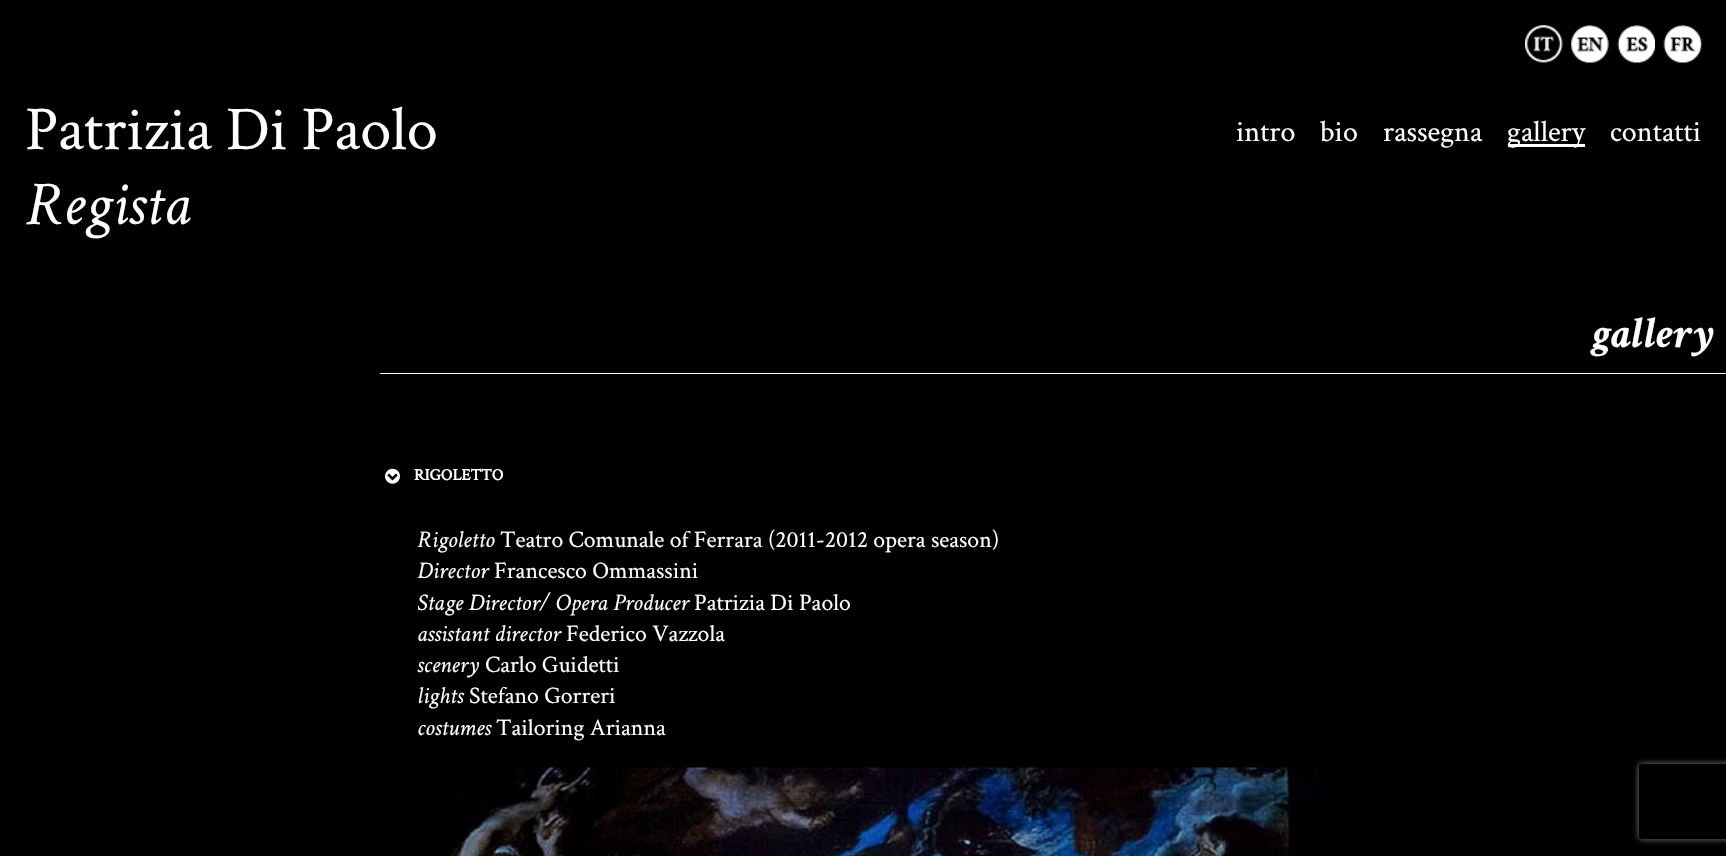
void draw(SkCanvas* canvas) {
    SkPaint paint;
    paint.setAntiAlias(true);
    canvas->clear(0xFF000000);
    canvas->drawImageRect(SkImages::DeferredFromEncodedData(SkData::MakeFromFileName("img1.png")), SkRect::MakeXYWH(1525, 25, 38, 38), SkSamplingOptions());
    canvas->drawImageRect(SkImages::DeferredFromEncodedData(SkData::MakeFromFileName("img2.png")), SkRect::MakeXYWH(1571, 25, 38, 38), SkSamplingOptions());
    canvas->drawImageRect(SkImages::DeferredFromEncodedData(SkData::MakeFromFileName("img3.png")), SkRect::MakeXYWH(1617, 25, 38, 38), SkSamplingOptions());
    canvas->drawImageRect(SkImages::DeferredFromEncodedData(SkData::MakeFromFileName("img4.png")), SkRect::MakeXYWH(1663, 25, 39, 38), SkSamplingOptions());
    SkFont font1(fontMgr->matchFamilyStyle("Crimson Text", SkFontStyle::Normal()), 62.5f);
    font1.setSubpixel(true);
    paint.setColor(0xFFFFFFFF);
    canvas->drawString("Patrizia Di Paolo", 25, 149, font1, paint);
    SkFont font2(fontMgr->matchFamilyStyle("Crimson Text", SkFontStyle::Italic()), 62.5f);
    font2.setSubpixel(true);
    canvas->drawString("Regista", 25, 224, font2, paint);
    SkFont font3(fontMgr->matchFamilyStyle("Crimson Text", SkFontStyle::Normal()), 30);
    font3.setSubpixel(true);
    canvas->drawString("intro", 1236, 141, font3, paint);
    canvas->drawString("bio", 1320, 141, font3, paint);
    canvas->drawString("rassegna", 1383, 141, font3, paint);
    canvas->drawRect(SkRect::MakeXYWH(1508, 144, 77, 3), paint);
    canvas->drawString("gallery", 1507, 141, font3, paint);
    canvas->drawString("contatti", 1610, 141, font3, paint);
    canvas->drawRect(SkRect::MakeXYWH(380, 373, 1346, 1), paint);
    SkFont font4(fontMgr->matchFamilyStyle("Crimson Text", SkFontStyle::BoldItalic()), 44);
    font4.setSubpixel(true);
    canvas->drawString("gallery", 1591, 347, font4, paint);
    canvas->drawImageRect(SkImages::DeferredFromEncodedData(SkData::MakeFromFileName("img5.png")), SkRect::MakeXYWH(385, 468, 15, 16), SkSamplingOptions());
    SkFont font5(fontMgr->matchFamilyStyle("Crimson Text", SkFontStyle::Bold()), 16.25f);
    font5.setSubpixel(true);
    canvas->drawString("RIGOLETTO", 414, 480, font5, paint);
    SkFont font6(fontMgr->matchFamilyStyle("Crimson Text", SkFontStyle::Italic()), 23.75f);
    font6.setSubpixel(true);
    canvas->drawString("Rigoletto", 417, 547, font6, paint);
    SkFont font7(fontMgr->matchFamilyStyle("Crimson Text", SkFontStyle::Normal()), 23.75f);
    font7.setSubpixel(true);
    canvas->drawString("Teatro Comunale of Ferrara (2011-2012 opera season)", 500, 547, font7, paint);
    canvas->drawString("Director", 417, 578, font6, paint);
    canvas->drawString("Francesco Ommassini", 494, 578, font7, paint);
    canvas->drawString("Stage Director/ Opera Producer", 417, 610, font6, paint);
    canvas->drawString("Patrizia Di Paolo", 694, 610, font7, paint);
    canvas->drawString("assistant director", 417, 641, font6, paint);
    canvas->drawString("Federico Vazzola", 566, 641, font7, paint);
    canvas->drawString("scenery", 417, 672, font6, paint);
    canvas->drawString("Carlo Guidetti", 485, 672, font7, paint);
    canvas->drawString("lights", 417, 703, font6, paint);
    canvas->drawString("Stefano Gorreri", 469, 703, font7, paint);
    canvas->drawString("costumes", 417, 735, font6, paint);
    canvas->drawString("Tailoring Arianna", 496, 735, font7, paint);
    canvas->drawImageRect(SkImages::DeferredFromEncodedData(SkData::MakeFromFileName("img6.png")), SkRect::MakeXYWH(448, 767, 870, 89), SkSamplingOptions());
    canvas->save();
    canvas->clipPath(SkPathBuilder(SkPathFillType::kEvenOdd).moveTo(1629, 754).lineTo(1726, 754).lineTo(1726, 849).lineTo(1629, 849).close().moveTo(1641.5f, 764).lineTo(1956.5f, 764).cubicTo(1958, 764, 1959, 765, 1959, 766.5f).lineTo(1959, 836.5f).cubicTo(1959, 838, 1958, 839, 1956.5f, 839).lineTo(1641.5f, 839).cubicTo(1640, 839, 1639, 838, 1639, 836.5f).lineTo(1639, 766.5f).cubicTo(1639, 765, 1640, 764, 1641.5f, 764).close().detach(), true);
    paint.setColor(0xFF808080);
    paint.setMaskFilter(SkMaskFilter::MakeBlur(kNormal_SkBlurStyle, 3));
    canvas->drawRoundRect(SkRect::MakeXYWH(1639, 764, 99, 75), 2.5f, 2.5f, paint);
    paint.setMaskFilter(nullptr);
    canvas->restore();
}
